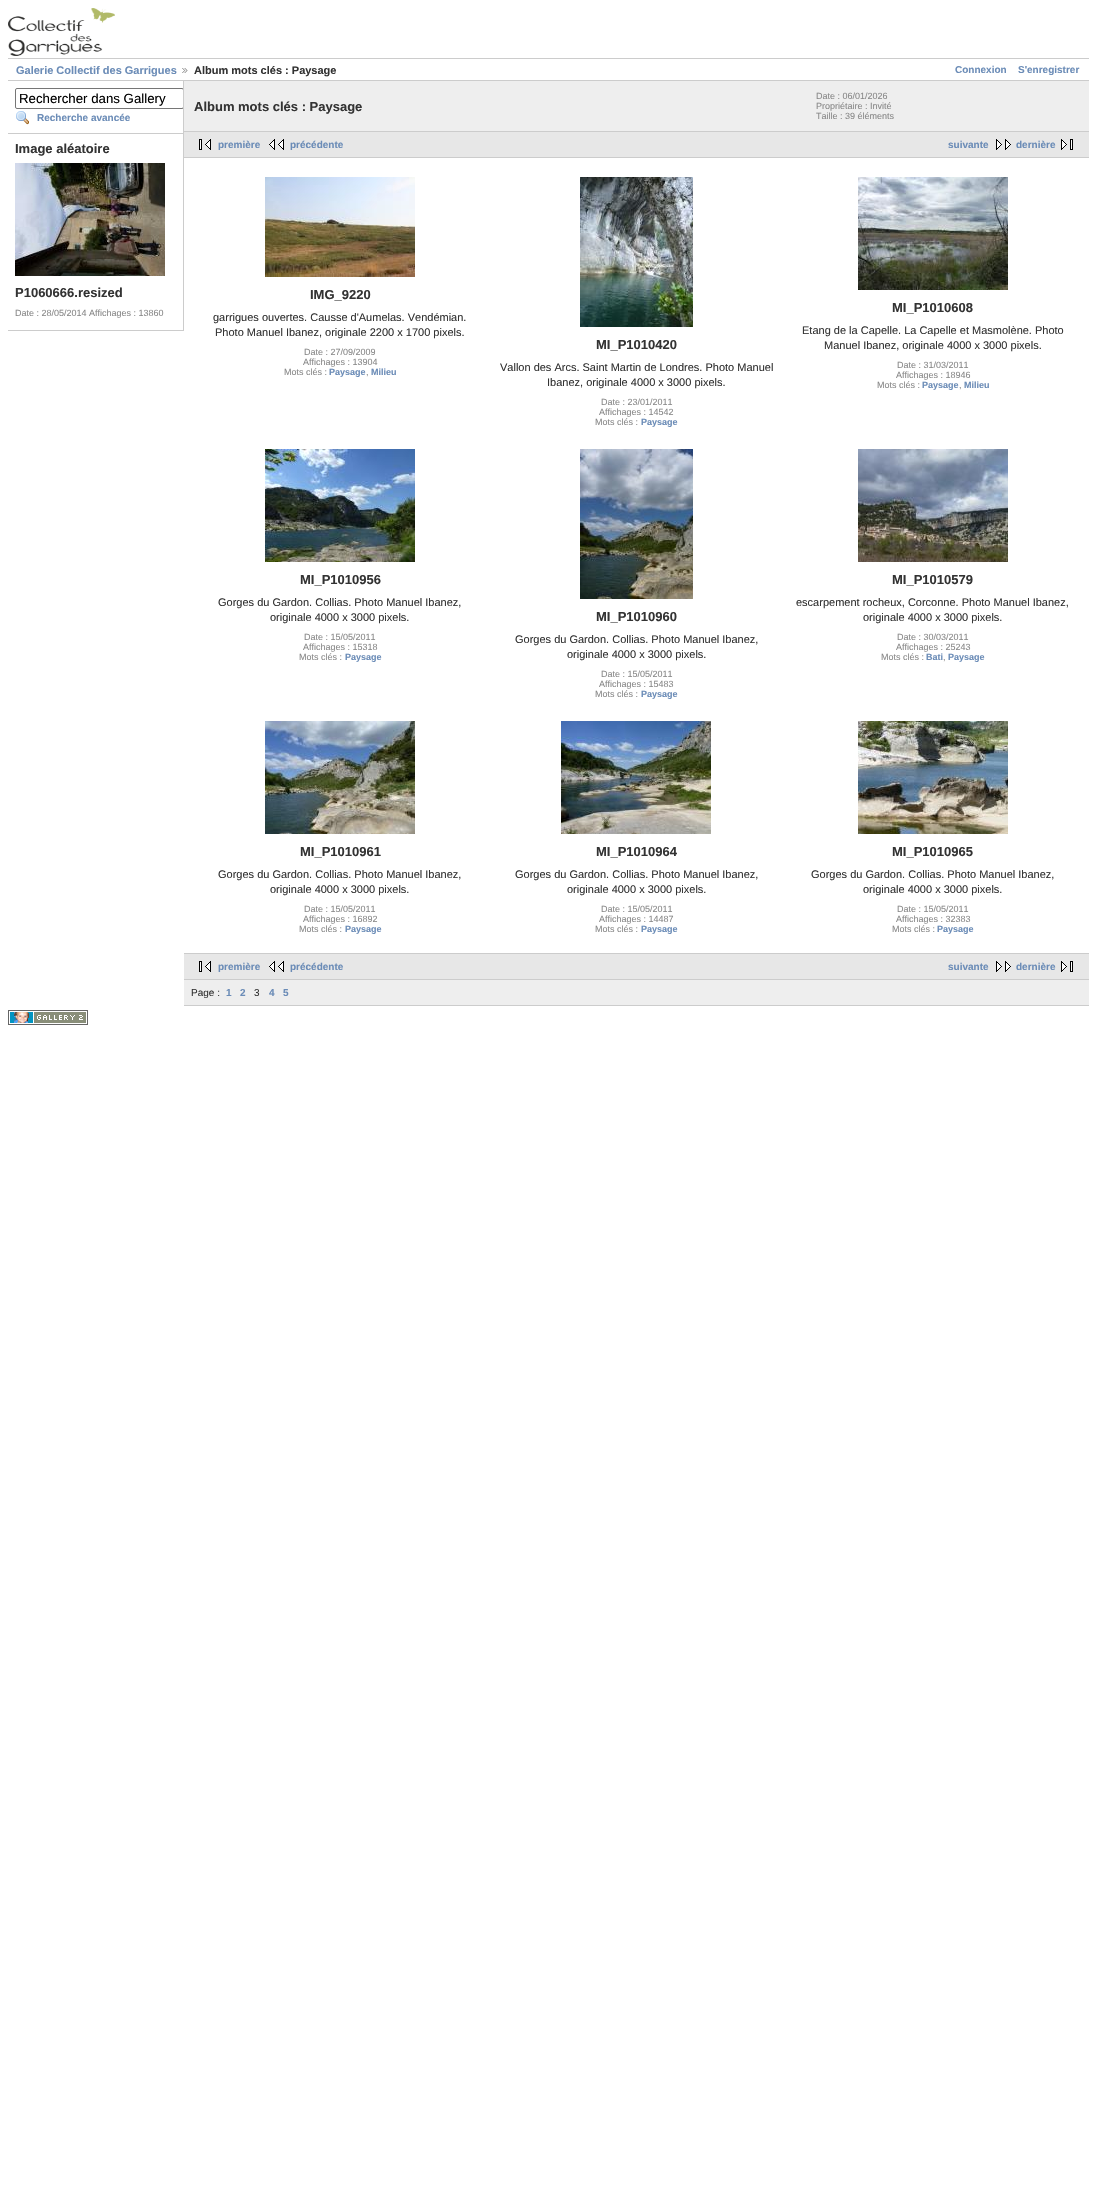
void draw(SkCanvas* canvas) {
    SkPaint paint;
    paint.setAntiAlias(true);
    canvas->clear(0xFFFFFFFF);
    canvas->drawImageRect(SkImages::DeferredFromEncodedData(SkData::MakeFromFileName("img1.png")), SkRect::MakeXYWH(8, 8, 107, 48), SkSamplingOptions());
    paint.setColor(0xFFCCCCCC);
    canvas->drawRect(SkRect::MakeXYWH(8, 58, 1081, 1), paint);
    canvas->drawRect(SkRect::MakeXYWH(8, 80, 1081, 1), paint);
    SkFont font1(fontMgr->matchFamilyStyle("Liberation Sans", SkFontStyle::Bold()), 11);
    font1.setSubpixel(true);
    paint.setColor(0xFF6B8CB7);
    canvas->drawString("Galerie Collectif des Garrigues", 16, 74, font1, paint);
    canvas->drawImageRect(SkImages::DeferredFromEncodedData(SkData::MakeFromFileName("img2.png")), SkRect::MakeXYWH(182, 68, 6, 5), SkSamplingOptions());
    paint.setColor(0xFF333333);
    canvas->drawString("Album mots clés : Paysage", 194, 74, font1, paint);
    SkFont font2(fontMgr->matchFamilyStyle("Liberation Sans", SkFontStyle::Bold()), 10);
    font2.setSubpixel(true);
    paint.setColor(0xFF6B8CB7);
    canvas->drawString("Connexion", 955, 73, font2, paint);
    canvas->drawString("S'enregistrer", 1018, 73, font2, paint);
    paint.setColor(0xFFCCCCCC);
    canvas->drawRect(SkRect::MakeXYWH(183, 81, 1, 250), paint);
    canvas->drawRect(SkRect::MakeXYWH(8, 133, 175, 1), paint);
    canvas->save();
    canvas->clipRect(SkRect::MakeXYWH(8, 81, 175, 250));
    paint.setStyle(SkPaint::kStroke_Style);
    paint.setStrokeWidth(1);
    paint.setColor(0xFF767676);
    canvas->drawRoundRect(SkRect::MakeXYWH(15.5f, 88.5f, 168, 20), 1.5f, 1.5f, paint);
    canvas->restore();
    SkFont font3(fontMgr->matchFamilyStyle("Liberation Sans", SkFontStyle::Normal()), 13.25f);
    font3.setSubpixel(true);
    paint.setStyle(SkPaint::kFill_Style);
    paint.setColor(0xFF000000);
    canvas->drawString("Rechercher dans Gallery", 19, 103, font3, paint);
    canvas->drawImageRect(SkImages::DeferredFromEncodedData(SkData::MakeFromFileName("img3.png")), SkRect::MakeXYWH(16, 111, 13, 14), SkSamplingOptions());
    paint.setColor(0xFF6B8CB7);
    canvas->drawString("Recherche avancée", 37, 121, font2, paint);
    paint.setColor(0xFFCCCCCC);
    canvas->drawRect(SkRect::MakeXYWH(8, 330, 175, 1), paint);
    SkFont font4(fontMgr->matchFamilyStyle("Liberation Sans", SkFontStyle::Bold()), 13);
    font4.setSubpixel(true);
    paint.setColor(0xFF333333);
    canvas->drawString("Image aléatoire", 15, 153, font4, paint);
    canvas->drawImageRect(SkImages::DeferredFromEncodedData(SkData::MakeFromFileName("img4.png")), SkRect::MakeXYWH(15, 163, 150, 113), SkSamplingOptions());
    canvas->drawString("P1060666.resized", 15, 297, font4, paint);
    SkFont font5(fontMgr->matchFamilyStyle("Liberation Sans", SkFontStyle::Normal()), 9);
    font5.setSubpixel(true);
    paint.setColor(0xFF888888);
    canvas->drawString("Date : 28/05/2014 Affichages : 13860", 15, 316, font5, paint);
    paint.setColor(0xFFEEEEEE);
    canvas->drawRect(SkRect::MakeXYWH(184, 81, 905, 50), paint);
    paint.setColor(0xFFCCCCCC);
    canvas->drawRect(SkRect::MakeXYWH(184, 131, 905, 1), paint);
    paint.setColor(0xFF333333);
    canvas->drawString("Album mots clés : Paysage", 194, 111, font4, paint);
    paint.setColor(0xFF888888);
    canvas->drawString("Date : 06/01/2026", 816, 99, font5, paint);
    canvas->drawString("Propriétaire : Invité", 816, 109, font5, paint);
    canvas->drawString("Taille : 39 éléments", 816, 119, font5, paint);
    paint.setColor(0xFFE7E7E7);
    canvas->drawRect(SkRect::MakeXYWH(184, 132, 905, 25), paint);
    paint.setColor(0xFFCCCCCC);
    canvas->drawRect(SkRect::MakeXYWH(184, 157, 905, 1), paint);
    canvas->drawImageRect(SkImages::DeferredFromEncodedData(SkData::MakeFromFileName("img5.png")), SkRect::MakeXYWH(199, 139, 12, 11), SkSamplingOptions());
    paint.setColor(0xFF6B8CB7);
    canvas->drawString("première", 218, 148, font2, paint);
    canvas->drawImageRect(SkImages::DeferredFromEncodedData(SkData::MakeFromFileName("img6.png")), SkRect::MakeXYWH(269, 139, 15, 11), SkSamplingOptions());
    canvas->drawString("précédente", 290, 148, font2, paint);
    canvas->drawString("suivante", 948, 148, font2, paint);
    canvas->drawImageRect(SkImages::DeferredFromEncodedData(SkData::MakeFromFileName("img7.png")), SkRect::MakeXYWH(996, 139, 15, 11), SkSamplingOptions());
    canvas->drawString("dernière", 1016, 148, font2, paint);
    canvas->drawImageRect(SkImages::DeferredFromEncodedData(SkData::MakeFromFileName("img8.png")), SkRect::MakeXYWH(1061, 139, 12, 11), SkSamplingOptions());
    paint.setColor(0xFFCCCCCC);
    canvas->drawRect(SkRect::MakeXYWH(184, 953, 905, 1), paint);
    canvas->drawImageRect(SkImages::DeferredFromEncodedData(SkData::MakeFromFileName("img9.png")), SkRect::MakeXYWH(265, 177, 150, 100), SkSamplingOptions());
    paint.setColor(0xFF333333);
    canvas->drawString("IMG_9220", 310, 299, font4, paint);
    SkFont font6(fontMgr->matchFamilyStyle("Liberation Sans", SkFontStyle::Normal()), 11);
    font6.setSubpixel(true);
    canvas->drawString("garrigues ouvertes. Causse d'Aumelas. Vendémian.", 213, 321, font6, paint);
    canvas->drawString("Photo Manuel Ibanez, originale 2200 x 1700 pixels.", 215, 336, font6, paint);
    paint.setColor(0xFF888888);
    canvas->drawString("Date : 27/09/2009", 304, 355, font5, paint);
    canvas->drawString("Affichages : 13904", 303, 365, font5, paint);
    canvas->drawString("Mots clés :", 284, 375, font5, paint);
    SkFont font7(fontMgr->matchFamilyStyle("Liberation Sans", SkFontStyle::Bold()), 9);
    font7.setSubpixel(true);
    paint.setColor(0xFF6B8CB7);
    canvas->drawString("Paysage", 329, 375, font7, paint);
    paint.setColor(0xFF888888);
    canvas->drawString(",", 366, 375, font5, paint);
    paint.setColor(0xFF6B8CB7);
    canvas->drawString("Milieu", 371, 375, font7, paint);
    canvas->drawImageRect(SkImages::DeferredFromEncodedData(SkData::MakeFromFileName("img10.png")), SkRect::MakeXYWH(580, 177, 113, 150), SkSamplingOptions());
    paint.setColor(0xFF333333);
    canvas->drawString("MI_P1010420", 596, 349, font4, paint);
    canvas->drawString("Vallon des Arcs. Saint Martin de Londres. Photo Manuel", 500, 371, font6, paint);
    canvas->drawString("Ibanez, originale 4000 x 3000 pixels.", 547, 386, font6, paint);
    paint.setColor(0xFF888888);
    canvas->drawString("Date : 23/01/2011", 601, 405, font5, paint);
    canvas->drawString("Affichages : 14542", 599, 415, font5, paint);
    canvas->drawString("Mots clés :", 595, 425, font5, paint);
    paint.setColor(0xFF6B8CB7);
    canvas->drawString("Paysage", 641, 425, font7, paint);
    canvas->drawImageRect(SkImages::DeferredFromEncodedData(SkData::MakeFromFileName("img11.png")), SkRect::MakeXYWH(858, 177, 150, 113), SkSamplingOptions());
    paint.setColor(0xFF333333);
    canvas->drawString("MI_P1010608", 892, 312, font4, paint);
    canvas->drawString("Etang de la Capelle. La Capelle et Masmolène. Photo", 802, 334, font6, paint);
    canvas->drawString("Manuel Ibanez, originale 4000 x 3000 pixels.", 824, 349, font6, paint);
    paint.setColor(0xFF888888);
    canvas->drawString("Date : 31/03/2011", 897, 368, font5, paint);
    canvas->drawString("Affichages : 18946", 896, 378, font5, paint);
    canvas->drawString("Mots clés :", 877, 388, font5, paint);
    paint.setColor(0xFF6B8CB7);
    canvas->drawString("Paysage", 922, 388, font7, paint);
    paint.setColor(0xFF888888);
    canvas->drawString(",", 959, 388, font5, paint);
    paint.setColor(0xFF6B8CB7);
    canvas->drawString("Milieu", 964, 388, font7, paint);
    canvas->drawImageRect(SkImages::DeferredFromEncodedData(SkData::MakeFromFileName("img12.png")), SkRect::MakeXYWH(265, 449, 150, 113), SkSamplingOptions());
    paint.setColor(0xFF333333);
    canvas->drawString("MI_P1010956", 300, 584, font4, paint);
    canvas->drawString("Gorges du Gardon. Collias. Photo Manuel Ibanez,", 218, 606, font6, paint);
    canvas->drawString("originale 4000 x 3000 pixels.", 270, 621, font6, paint);
    paint.setColor(0xFF888888);
    canvas->drawString("Date : 15/05/2011", 304, 640, font5, paint);
    canvas->drawString("Affichages : 15318", 303, 650, font5, paint);
    canvas->drawString("Mots clés :", 299, 660, font5, paint);
    paint.setColor(0xFF6B8CB7);
    canvas->drawString("Paysage", 345, 660, font7, paint);
    canvas->drawImageRect(SkImages::DeferredFromEncodedData(SkData::MakeFromFileName("img13.png")), SkRect::MakeXYWH(580, 449, 113, 150), SkSamplingOptions());
    paint.setColor(0xFF333333);
    canvas->drawString("MI_P1010960", 596, 621, font4, paint);
    canvas->drawString("Gorges du Gardon. Collias. Photo Manuel Ibanez,", 515, 643, font6, paint);
    canvas->drawString("originale 4000 x 3000 pixels.", 567, 658, font6, paint);
    paint.setColor(0xFF888888);
    canvas->drawString("Date : 15/05/2011", 601, 677, font5, paint);
    canvas->drawString("Affichages : 15483", 599, 687, font5, paint);
    canvas->drawString("Mots clés :", 595, 697, font5, paint);
    paint.setColor(0xFF6B8CB7);
    canvas->drawString("Paysage", 641, 697, font7, paint);
    canvas->drawImageRect(SkImages::DeferredFromEncodedData(SkData::MakeFromFileName("img14.png")), SkRect::MakeXYWH(858, 449, 150, 113), SkSamplingOptions());
    paint.setColor(0xFF333333);
    canvas->drawString("MI_P1010579", 892, 584, font4, paint);
    canvas->drawString("escarpement rocheux, Corconne. Photo Manuel Ibanez,", 796, 606, font6, paint);
    canvas->drawString("originale 4000 x 3000 pixels.", 863, 621, font6, paint);
    paint.setColor(0xFF888888);
    canvas->drawString("Date : 30/03/2011", 897, 640, font5, paint);
    canvas->drawString("Affichages : 25243", 896, 650, font5, paint);
    canvas->drawString("Mots clés :", 881, 660, font5, paint);
    paint.setColor(0xFF6B8CB7);
    canvas->drawString("Bati", 926, 660, font7, paint);
    paint.setColor(0xFF888888);
    canvas->drawString(",", 943, 660, font5, paint);
    paint.setColor(0xFF6B8CB7);
    canvas->drawString("Paysage", 948, 660, font7, paint);
    canvas->drawImageRect(SkImages::DeferredFromEncodedData(SkData::MakeFromFileName("img15.png")), SkRect::MakeXYWH(265, 721, 150, 113), SkSamplingOptions());
    paint.setColor(0xFF333333);
    canvas->drawString("MI_P1010961", 300, 856, font4, paint);
    canvas->drawString("Gorges du Gardon. Collias. Photo Manuel Ibanez,", 218, 878, font6, paint);
    canvas->drawString("originale 4000 x 3000 pixels.", 270, 893, font6, paint);
    paint.setColor(0xFF888888);
    canvas->drawString("Date : 15/05/2011", 304, 912, font5, paint);
    canvas->drawString("Affichages : 16892", 303, 922, font5, paint);
    canvas->drawString("Mots clés :", 299, 932, font5, paint);
    paint.setColor(0xFF6B8CB7);
    canvas->drawString("Paysage", 345, 932, font7, paint);
    canvas->drawImageRect(SkImages::DeferredFromEncodedData(SkData::MakeFromFileName("img16.png")), SkRect::MakeXYWH(561, 721, 150, 113), SkSamplingOptions());
    paint.setColor(0xFF333333);
    canvas->drawString("MI_P1010964", 596, 856, font4, paint);
    canvas->drawString("Gorges du Gardon. Collias. Photo Manuel Ibanez,", 515, 878, font6, paint);
    canvas->drawString("originale 4000 x 3000 pixels.", 567, 893, font6, paint);
    paint.setColor(0xFF888888);
    canvas->drawString("Date : 15/05/2011", 601, 912, font5, paint);
    canvas->drawString("Affichages : 14487", 599, 922, font5, paint);
    canvas->drawString("Mots clés :", 595, 932, font5, paint);
    paint.setColor(0xFF6B8CB7);
    canvas->drawString("Paysage", 641, 932, font7, paint);
    canvas->drawImageRect(SkImages::DeferredFromEncodedData(SkData::MakeFromFileName("img17.png")), SkRect::MakeXYWH(858, 721, 150, 113), SkSamplingOptions());
    paint.setColor(0xFF333333);
    canvas->drawString("MI_P1010965", 892, 856, font4, paint);
    canvas->drawString("Gorges du Gardon. Collias. Photo Manuel Ibanez,", 811, 878, font6, paint);
    canvas->drawString("originale 4000 x 3000 pixels.", 863, 893, font6, paint);
    paint.setColor(0xFF888888);
    canvas->drawString("Date : 15/05/2011", 897, 912, font5, paint);
    canvas->drawString("Affichages : 32383", 896, 922, font5, paint);
    canvas->drawString("Mots clés :", 892, 932, font5, paint);
    paint.setColor(0xFF6B8CB7);
    canvas->drawString("Paysage", 937, 932, font7, paint);
    paint.setColor(0xFFE7E7E7);
    canvas->drawRect(SkRect::MakeXYWH(184, 954, 905, 25), paint);
    paint.setColor(0xFFCCCCCC);
    canvas->drawRect(SkRect::MakeXYWH(184, 979, 905, 1), paint);
    canvas->drawImageRect(SkImages::DeferredFromEncodedData(SkData::MakeFromFileName("img5.png")), SkRect::MakeXYWH(199, 961, 12, 11), SkSamplingOptions());
    paint.setColor(0xFF6B8CB7);
    canvas->drawString("première", 218, 970, font2, paint);
    canvas->drawImageRect(SkImages::DeferredFromEncodedData(SkData::MakeFromFileName("img6.png")), SkRect::MakeXYWH(269, 961, 15, 11), SkSamplingOptions());
    canvas->drawString("précédente", 290, 970, font2, paint);
    canvas->drawString("suivante", 948, 970, font2, paint);
    canvas->drawImageRect(SkImages::DeferredFromEncodedData(SkData::MakeFromFileName("img7.png")), SkRect::MakeXYWH(996, 961, 15, 11), SkSamplingOptions());
    canvas->drawString("dernière", 1016, 970, font2, paint);
    canvas->drawImageRect(SkImages::DeferredFromEncodedData(SkData::MakeFromFileName("img8.png")), SkRect::MakeXYWH(1061, 961, 12, 11), SkSamplingOptions());
    paint.setColor(0xFFEEEEEE);
    canvas->drawRect(SkRect::MakeXYWH(184, 980, 905, 25), paint);
    paint.setColor(0xFFCCCCCC);
    canvas->drawRect(SkRect::MakeXYWH(184, 1005, 905, 1), paint);
    SkFont font8(fontMgr->matchFamilyStyle("Liberation Sans", SkFontStyle::Normal()), 10);
    font8.setSubpixel(true);
    paint.setColor(0xFF333333);
    canvas->drawString("Page :", 191, 996, font8, paint);
    paint.setColor(0xFF6B8CB7);
    canvas->drawString("1", 226, 996, font2, paint);
    canvas->drawString("2", 240, 996, font2, paint);
    paint.setColor(0xFF333333);
    canvas->drawString("3", 254, 996, font8, paint);
    paint.setColor(0xFF6B8CB7);
    canvas->drawString("4", 269, 996, font2, paint);
    canvas->drawString("5", 283, 996, font2, paint);
    canvas->drawImageRect(SkImages::DeferredFromEncodedData(SkData::MakeFromFileName("img18.png")), SkRect::MakeXYWH(8, 1010, 80, 15), SkSamplingOptions());
}
